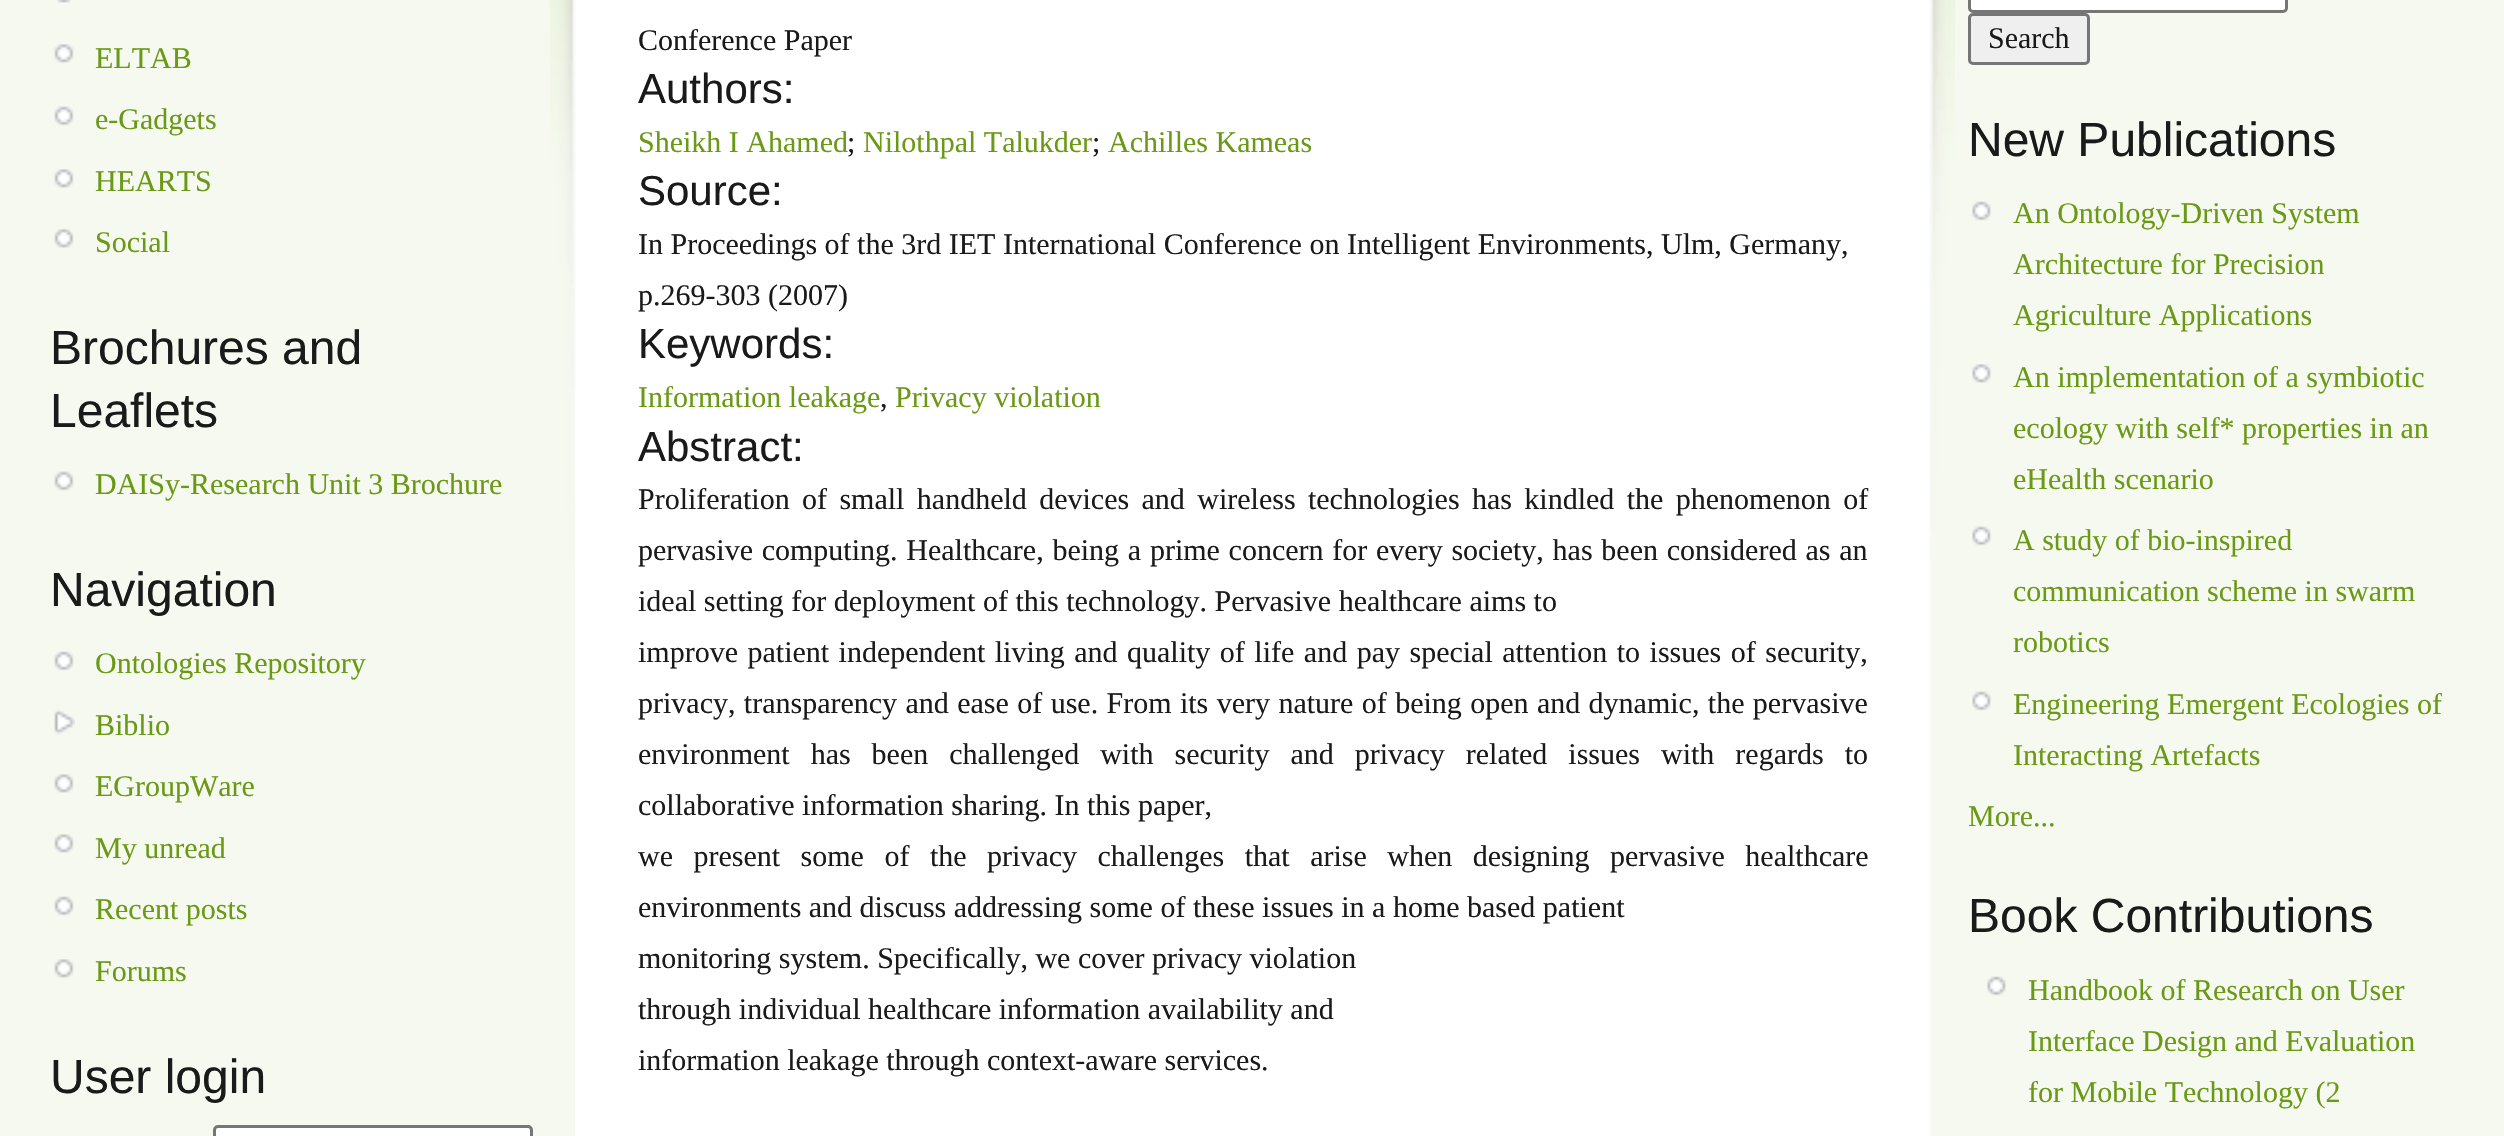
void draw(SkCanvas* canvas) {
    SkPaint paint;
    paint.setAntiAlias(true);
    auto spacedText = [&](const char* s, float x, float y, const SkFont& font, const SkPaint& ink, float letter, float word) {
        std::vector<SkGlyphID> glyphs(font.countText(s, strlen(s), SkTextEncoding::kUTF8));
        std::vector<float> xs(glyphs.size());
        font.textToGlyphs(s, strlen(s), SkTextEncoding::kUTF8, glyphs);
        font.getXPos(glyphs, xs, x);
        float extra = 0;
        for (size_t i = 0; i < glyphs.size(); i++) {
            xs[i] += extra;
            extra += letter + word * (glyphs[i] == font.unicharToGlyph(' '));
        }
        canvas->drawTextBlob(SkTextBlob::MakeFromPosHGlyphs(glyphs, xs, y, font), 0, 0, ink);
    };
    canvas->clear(0xFFF5F9EF);
    canvas->drawImageRect(SkImages::DeferredFromEncodedData(SkData::MakeFromFileName("img1.png")), SkRect::MakeXYWH(56, 0, 15, 3), SkSamplingOptions());
    canvas->drawImageRect(SkImages::DeferredFromEncodedData(SkData::MakeFromFileName("img2.png")), SkRect::MakeXYWH(54, 44, 20, 19), SkSamplingOptions());
    SkFont font1(fontMgr->matchFamilyStyle("Liberation Serif", SkFontStyle::Normal()), 30);
    font1.setSubpixel(true);
    paint.setColor(0xFF6A9915);
    canvas->drawString("ELTAB", 95, 68, font1, paint);
    canvas->drawImageRect(SkImages::DeferredFromEncodedData(SkData::MakeFromFileName("img3.png")), SkRect::MakeXYWH(54, 106, 20, 20), SkSamplingOptions());
    canvas->drawString("e-Gadgets", 95, 129, font1, paint);
    canvas->drawImageRect(SkImages::DeferredFromEncodedData(SkData::MakeFromFileName("img2.png")), SkRect::MakeXYWH(54, 169, 20, 19), SkSamplingOptions());
    canvas->drawString("HEARTS", 95, 191, font1, paint);
    canvas->drawImageRect(SkImages::DeferredFromEncodedData(SkData::MakeFromFileName("img4.png")), SkRect::MakeXYWH(54, 229, 20, 19), SkSamplingOptions());
    canvas->drawString("Social", 95, 252, font1, paint);
    SkFont font2(fontMgr->matchFamilyStyle("Liberation Sans", SkFontStyle::Normal()), 48);
    font2.setSubpixel(true);
    paint.setColor(0xFF191A19);
    canvas->drawString("Brochures and", 50, 364, font2, paint);
    canvas->drawString("Leaflets", 50, 427, font2, paint);
    canvas->drawImageRect(SkImages::DeferredFromEncodedData(SkData::MakeFromFileName("img3.png")), SkRect::MakeXYWH(54, 471, 20, 20), SkSamplingOptions());
    paint.setColor(0xFF6A9915);
    canvas->drawString("DAISy-Research Unit 3 Brochure", 95, 494, font1, paint);
    paint.setColor(0xFF191A19);
    canvas->drawString("Navigation", 50, 606, font2, paint);
    canvas->drawImageRect(SkImages::DeferredFromEncodedData(SkData::MakeFromFileName("img3.png")), SkRect::MakeXYWH(54, 651, 20, 20), SkSamplingOptions());
    paint.setColor(0xFF6A9915);
    canvas->drawString("Ontologies Repository", 95, 673, font1, paint);
    canvas->drawImageRect(SkImages::DeferredFromEncodedData(SkData::MakeFromFileName("img5.png")), SkRect::MakeXYWH(54, 709, 21, 26), SkSamplingOptions());
    canvas->drawString("Biblio", 95, 735, font1, paint);
    canvas->drawImageRect(SkImages::DeferredFromEncodedData(SkData::MakeFromFileName("img2.png")), SkRect::MakeXYWH(54, 774, 20, 19), SkSamplingOptions());
    canvas->drawString("EGroupWare", 95, 796, font1, paint);
    canvas->drawImageRect(SkImages::DeferredFromEncodedData(SkData::MakeFromFileName("img2.png")), SkRect::MakeXYWH(54, 834, 20, 19), SkSamplingOptions());
    canvas->drawString("My unread", 95, 858, font1, paint);
    canvas->drawImageRect(SkImages::DeferredFromEncodedData(SkData::MakeFromFileName("img3.png")), SkRect::MakeXYWH(54, 896, 20, 20), SkSamplingOptions());
    canvas->drawString("Recent posts", 95, 919, font1, paint);
    canvas->drawImageRect(SkImages::DeferredFromEncodedData(SkData::MakeFromFileName("img2.png")), SkRect::MakeXYWH(54, 959, 20, 19), SkSamplingOptions());
    canvas->drawString("Forums", 95, 981, font1, paint);
    paint.setColor(0xFF191A19);
    canvas->drawString("User login", 50, 1093, font2, paint);
    paint.setColor(0xFFFFFFFF);
    canvas->drawRoundRect(SkRect::MakeXYWH(214.5f, 1126.5f, 317, 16), 3.5f, 3.5f, paint);
    paint.setStyle(SkPaint::kStroke_Style);
    paint.setStrokeWidth(3);
    paint.setColor(0xFF767676);
    canvas->drawRoundRect(SkRect::MakeXYWH(214.5f, 1126.5f, 317, 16), 3.5f, 3.5f, paint);
    paint.setStyle(SkPaint::kFill_Style);
    paint.setColor(0xFFFFFFFF);
    canvas->drawRect(SkRect::MakeXYWH(575, 0, 1355, 1136), paint);
    canvas->drawImageRect(SkImages::DeferredFromEncodedData(SkData::MakeFromFileName("img6.png")), SkRect::MakeXYWH(1929, 0, 26, 562), SkSamplingOptions());
    canvas->drawImageRect(SkImages::DeferredFromEncodedData(SkData::MakeFromFileName("img7.png")), SkRect::MakeXYWH(550, 0, 26, 562), SkSamplingOptions());
    paint.setColor(0xFF191A19);
    canvas->drawString("Conference Paper", 638, 50, font1, paint);
    SkFont font3(fontMgr->matchFamilyStyle("Liberation Sans", SkFontStyle::Normal()), 42);
    font3.setSubpixel(true);
    canvas->drawString("Authors:", 638, 103, font3, paint);
    paint.setColor(0xFF6A9915);
    canvas->drawString("Sheikh I Ahamed", 638, 152, font1, paint);
    paint.setColor(0xFF191A19);
    canvas->drawString(";", 847, 152, font1, paint);
    paint.setColor(0xFF6A9915);
    canvas->drawString("Nilothpal Talukder", 863, 152, font1, paint);
    paint.setColor(0xFF191A19);
    canvas->drawString(";", 1092, 152, font1, paint);
    paint.setColor(0xFF6A9915);
    canvas->drawString("Achilles Kameas", 1108, 152, font1, paint);
    paint.setColor(0xFF191A19);
    canvas->drawString("Source:", 638, 205, font3, paint);
    canvas->drawString("In Proceedings of the 3rd IET International Conference on Intelligent Environments, Ulm, Germany,", 638, 254, font1, paint);
    canvas->drawString("p.269-303 (2007)", 638, 305, font1, paint);
    canvas->drawString("Keywords:", 638, 358, font3, paint);
    paint.setColor(0xFF6A9915);
    canvas->drawString("Information leakage", 638, 407, font1, paint);
    paint.setColor(0xFF191A19);
    canvas->drawString(",", 880, 407, font1, paint);
    paint.setColor(0xFF6A9915);
    canvas->drawString("Privacy violation", 895, 407, font1, paint);
    paint.setColor(0xFF191A19);
    canvas->drawString("Abstract:", 638, 461, font3, paint);
    spacedText("Proliferation of small handheld devices and wireless technologies has kindled the phenomenon of", 638, 509, font1, paint, 0, 4.9f);
    spacedText("pervasive computing. Healthcare, being a prime concern for every society, has been considered as an", 638, 560, font1, paint, 0, 1.25f);
    canvas->drawString("ideal setting for deployment of this technology. Pervasive healthcare aims to", 638, 611, font1, paint);
    spacedText("improve patient independent living and quality of life and pay special attention to issues of security,", 638, 662, font1, paint, 0, 2);
    spacedText("privacy, transparency and ease of use. From its very nature of being open and dynamic, the pervasive", 638, 713, font1, paint, 0, 0.9f);
    spacedText("environment has been challenged with security and privacy related issues with regards to", 638, 764, font1, paint, 0, 13.5f);
    canvas->drawString("collaborative information sharing. In this paper,", 638, 815, font1, paint);
    spacedText("we present some of the privacy challenges that arise when designing pervasive healthcare", 638, 866, font1, paint, 0, 13);
    canvas->drawString("environments and discuss addressing some of these issues in a home based patient", 638, 917, font1, paint);
    canvas->drawString("monitoring system. Specifically, we cover privacy violation", 638, 968, font1, paint);
    canvas->drawString("through individual healthcare information availability and", 638, 1019, font1, paint);
    canvas->drawString("information leakage through context-aware services.", 638, 1070, font1, paint);
    paint.setColor(0xFFFFFFFF);
    canvas->drawRoundRect(SkRect::MakeXYWH(1969.5f, -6.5f, 317, 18), 3.5f, 3.5f, paint);
    paint.setStyle(SkPaint::kStroke_Style);
    paint.setColor(0xFF767676);
    canvas->drawRoundRect(SkRect::MakeXYWH(1969.5f, -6.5f, 317, 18), 3.5f, 3.5f, paint);
    paint.setStyle(SkPaint::kFill_Style);
    paint.setColor(0xFFEFEFEF);
    canvas->drawRoundRect(SkRect::MakeXYWH(1969.5f, 14.5f, 119, 49), 3.5f, 3.5f, paint);
    paint.setStyle(SkPaint::kStroke_Style);
    paint.setColor(0xFF767676);
    canvas->drawRoundRect(SkRect::MakeXYWH(1969.5f, 14.5f, 119, 49), 3.5f, 3.5f, paint);
    paint.setStyle(SkPaint::kFill_Style);
    paint.setColor(0xFF191A19);
    canvas->drawString("Search", 1988, 48, font1, paint);
    canvas->drawString("New Publications", 1968, 156, font2, paint);
    canvas->drawImageRect(SkImages::DeferredFromEncodedData(SkData::MakeFromFileName("img8.png")), SkRect::MakeXYWH(1972, 201, 19, 20), SkSamplingOptions());
    paint.setColor(0xFF6A9915);
    canvas->drawString("An Ontology-Driven System", 2013, 223, font1, paint);
    canvas->drawString("Architecture for Precision", 2013, 274, font1, paint);
    canvas->drawString("Agriculture Applications", 2013, 325, font1, paint);
    canvas->drawImageRect(SkImages::DeferredFromEncodedData(SkData::MakeFromFileName("img9.png")), SkRect::MakeXYWH(1972, 364, 19, 19), SkSamplingOptions());
    canvas->drawString("An implementation of a symbiotic", 2013, 387, font1, paint);
    canvas->drawString("ecology with self* properties in an", 2013, 438, font1, paint);
    canvas->drawString("eHealth scenario", 2013, 489, font1, paint);
    canvas->drawImageRect(SkImages::DeferredFromEncodedData(SkData::MakeFromFileName("img8.png")), SkRect::MakeXYWH(1972, 526, 19, 20), SkSamplingOptions());
    canvas->drawString("A study of bio-inspired", 2013, 550, font1, paint);
    canvas->drawString("communication scheme in swarm", 2013, 601, font1, paint);
    canvas->drawString("robotics", 2013, 652, font1, paint);
    canvas->drawImageRect(SkImages::DeferredFromEncodedData(SkData::MakeFromFileName("img8.png")), SkRect::MakeXYWH(1972, 691, 19, 20), SkSamplingOptions());
    canvas->drawString("Engineering Emergent Ecologies of", 2013, 714, font1, paint);
    canvas->drawString("Interacting Artefacts", 2013, 765, font1, paint);
    canvas->drawString("More...", 1968, 826, font1, paint);
    paint.setColor(0xFF191A19);
    canvas->drawString("Book Contributions", 1968, 932, font2, paint);
    canvas->drawImageRect(SkImages::DeferredFromEncodedData(SkData::MakeFromFileName("img8.png")), SkRect::MakeXYWH(1987, 976, 19, 20), SkSamplingOptions());
    paint.setColor(0xFF6A9915);
    canvas->drawString("Handbook of Research on User", 2028, 1000, font1, paint);
    canvas->drawString("Interface Design and Evaluation", 2028, 1051, font1, paint);
    canvas->drawString("for Mobile Technology (2", 2028, 1102, font1, paint);
}
